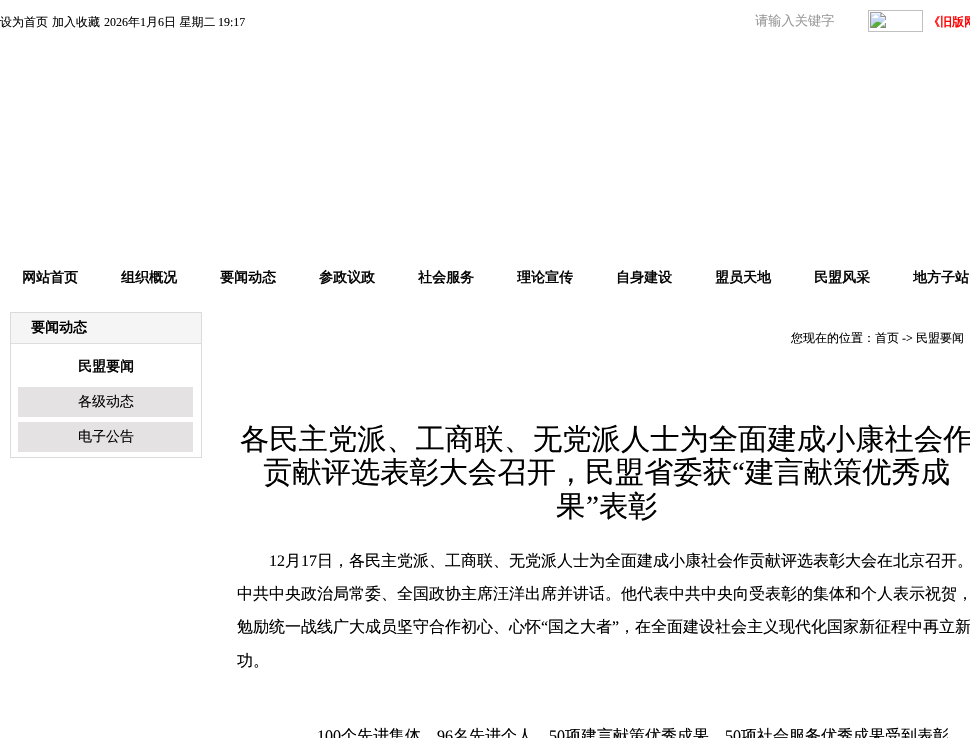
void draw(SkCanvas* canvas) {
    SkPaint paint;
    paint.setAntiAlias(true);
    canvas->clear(0xFFFFFFFF);
    SkFont font1(fontMgr->matchFamilyStyle("WenQuanYi Zen Hei", SkFontStyle(500, SkFontStyle::kNormal_Width, SkFontStyle::kUpright_Slant)), 12);
    font1.setSubpixel(true);
    paint.setColor(0xFF060606);
    canvas->drawString("设为首页", 0, 26, font1, paint);
    canvas->drawString("加入收藏", 52, 26, font1, paint);
    SkFont font2(fontMgr->matchFamilyStyle("Liberation Serif", SkFontStyle::Normal()), 12);
    font2.setSubpixel(true);
    canvas->drawString("2026", 104, 26, font2, paint);
    canvas->drawString("年", 128, 26, font1, paint);
    canvas->drawString("1", 140, 26, font2, paint);
    canvas->drawString("月", 146, 26, font1, paint);
    canvas->drawString("6", 158, 26, font2, paint);
    canvas->drawString("日 星期二", 164, 26, font1, paint);
    canvas->drawString("19:17", 218, 26, font2, paint);
    SkFont font3(fontMgr->matchFamilyStyle("WenQuanYi Zen Hei", SkFontStyle(500, SkFontStyle::kNormal_Width, SkFontStyle::kUpright_Slant)), 13.25f);
    font3.setSubpixel(true);
    paint.setColor(0xFF999999);
    canvas->drawString("请输入关键字", 755, 25, font3, paint);
    canvas->drawImageRect(SkImages::DeferredFromEncodedData(SkData::MakeFromFileName("img1.png")), SkRect::MakeXYWH(868, 10, 55, 22), SkSamplingOptions());
    SkFont font4(fontMgr->matchFamilyStyle("WenQuanYi Zen Hei", SkFontStyle::Bold()), 12);
    font4.setSubpixel(true);
    paint.setColor(0xFFFF0000);
    canvas->drawString("《旧版网", 928, 26, font4, paint);
    SkFont font5(fontMgr->matchFamilyStyle("WenQuanYi Zen Hei", SkFontStyle::Bold()), 14);
    font5.setSubpixel(true);
    paint.setColor(0xFF060606);
    canvas->drawString("网站首页", 22, 282, font5, paint);
    canvas->drawString("组织概况", 121, 282, font5, paint);
    canvas->drawString("要闻动态", 220, 282, font5, paint);
    canvas->drawString("参政议政", 319, 282, font5, paint);
    canvas->drawString("社会服务", 418, 282, font5, paint);
    canvas->drawString("理论宣传", 517, 282, font5, paint);
    canvas->drawString("自身建设", 616, 282, font5, paint);
    canvas->drawString("盟员天地", 715, 282, font5, paint);
    canvas->drawString("民盟风采", 814, 282, font5, paint);
    canvas->drawString("地方子站", 913, 282, font5, paint);
    paint.setStyle(SkPaint::kStroke_Style);
    paint.setStrokeWidth(1);
    paint.setColor(0xFFDBDBDB);
    canvas->drawRect(SkRect::MakeXYWH(10.5f, 312.5f, 191, 145), paint);
    paint.setStyle(SkPaint::kFill_Style);
    paint.setColor(0xFFF5F5F5);
    canvas->drawRect(SkRect::MakeXYWH(11, 313, 190, 30), paint);
    paint.setColor(0xFF000000);
    canvas->drawString("要闻动态", 31, 332, font5, paint);
    paint.setColor(0xFFDEDEDE);
    canvas->drawRect(SkRect::MakeXYWH(11, 343, 190, 1), paint);
    paint.setColor(0xFF060606);
    canvas->drawString("民盟要闻", 78, 371, font5, paint);
    paint.setColor(0xFFE4E2E3);
    canvas->drawRect(SkRect::MakeXYWH(18, 387, 175, 30), paint);
    SkFont font6(fontMgr->matchFamilyStyle("WenQuanYi Zen Hei", SkFontStyle(500, SkFontStyle::kNormal_Width, SkFontStyle::kUpright_Slant)), 14);
    font6.setSubpixel(true);
    paint.setColor(0xFF060606);
    canvas->drawString("各级动态", 78, 406, font6, paint);
    paint.setColor(0xFFE4E2E3);
    canvas->drawRect(SkRect::MakeXYWH(18, 422, 175, 30), paint);
    paint.setColor(0xFF060606);
    canvas->drawString("电子公告", 78, 441, font6, paint);
    paint.setColor(0xFF000000);
    canvas->drawString("您现在的位置：", 791, 342, font1, paint);
    paint.setColor(0xFF060606);
    canvas->drawString("首页", 875, 342, font1, paint);
    paint.setColor(0xFF000000);
    canvas->drawString("->", 902, 342, font2, paint);
    paint.setColor(0xFF060606);
    canvas->drawString("民盟要闻", 916, 342, font1, paint);
    SkFont font7(fontMgr->matchFamilyStyle("WenQuanYi Zen Hei", SkFontStyle(500, SkFontStyle::kNormal_Width, SkFontStyle::kUpright_Slant)), 29.3f);
    font7.setSubpixel(true);
    paint.setColor(0xFF000000);
    canvas->drawString("各民主党派、工商联、无党派人士为全面建成小康社会作", 240, 449, font7, paint);
    canvas->drawString("贡献评选表彰大会召开，民盟省委获", 263, 482, font7, paint);
    SkFont font8(fontMgr->matchFamilyStyle("Liberation Serif", SkFontStyle::Normal()), 29.3f);
    font8.setSubpixel(true);
    canvas->drawString("“", 732, 482, font8, paint);
    canvas->drawString("建言献策优秀成", 745, 482, font7, paint);
    canvas->drawString("果", 556, 516, font7, paint);
    canvas->drawString("”", 586, 516, font8, paint);
    canvas->drawString("表彰", 599, 516, font7, paint);
    SkFont font9(fontMgr->matchFamilyStyle("Liberation Serif", SkFontStyle::Normal()), 16);
    font9.setSubpixel(true);
    canvas->drawString("12", 269, 566, font9, paint);
    SkFont font10(fontMgr->matchFamilyStyle("WenQuanYi Zen Hei", SkFontStyle(500, SkFontStyle::kNormal_Width, SkFontStyle::kUpright_Slant)), 16);
    font10.setSubpixel(true);
    canvas->drawString("月", 285, 566, font10, paint);
    canvas->drawString("17", 301, 566, font9, paint);
    canvas->drawString("日，各民主党派、工商联、无党派人士为全面建成小康社会作贡献评选表彰大会在北京召开。", 317, 566, font10, paint);
    canvas->drawString("中共中央政治局常委、全国政协主席汪洋出席并讲话。他代表中共中央向受表彰的集体和个人表示祝贺，", 237, 599, font10, paint);
    canvas->drawString("勉励统一战线广大成员坚守合作初心、心怀", 237, 632, font10, paint);
    canvas->drawString("“", 541, 632, font9, paint);
    canvas->drawString("国之大者", 548, 632, font10, paint);
    canvas->drawString("”", 612, 632, font9, paint);
    canvas->drawString("，在全面建设社会主义现代化国家新征程中再立新", 619, 632, font10, paint);
    canvas->drawString("功。", 237, 666, font10, paint);
    canvas->drawString("100", 317, 741, font9, paint);
    canvas->drawString("个先进集体", 341, 741, font10, paint);
    canvas->drawString("96", 437, 741, font9, paint);
    canvas->drawString("名先进个人", 453, 741, font10, paint);
    canvas->drawString("50", 549, 741, font9, paint);
    canvas->drawString("项建言献策优秀成果", 565, 741, font10, paint);
    canvas->drawString("50", 725, 741, font9, paint);
    canvas->drawString("项社会服务优秀成果受到表彰", 741, 741, font10, paint);
}
